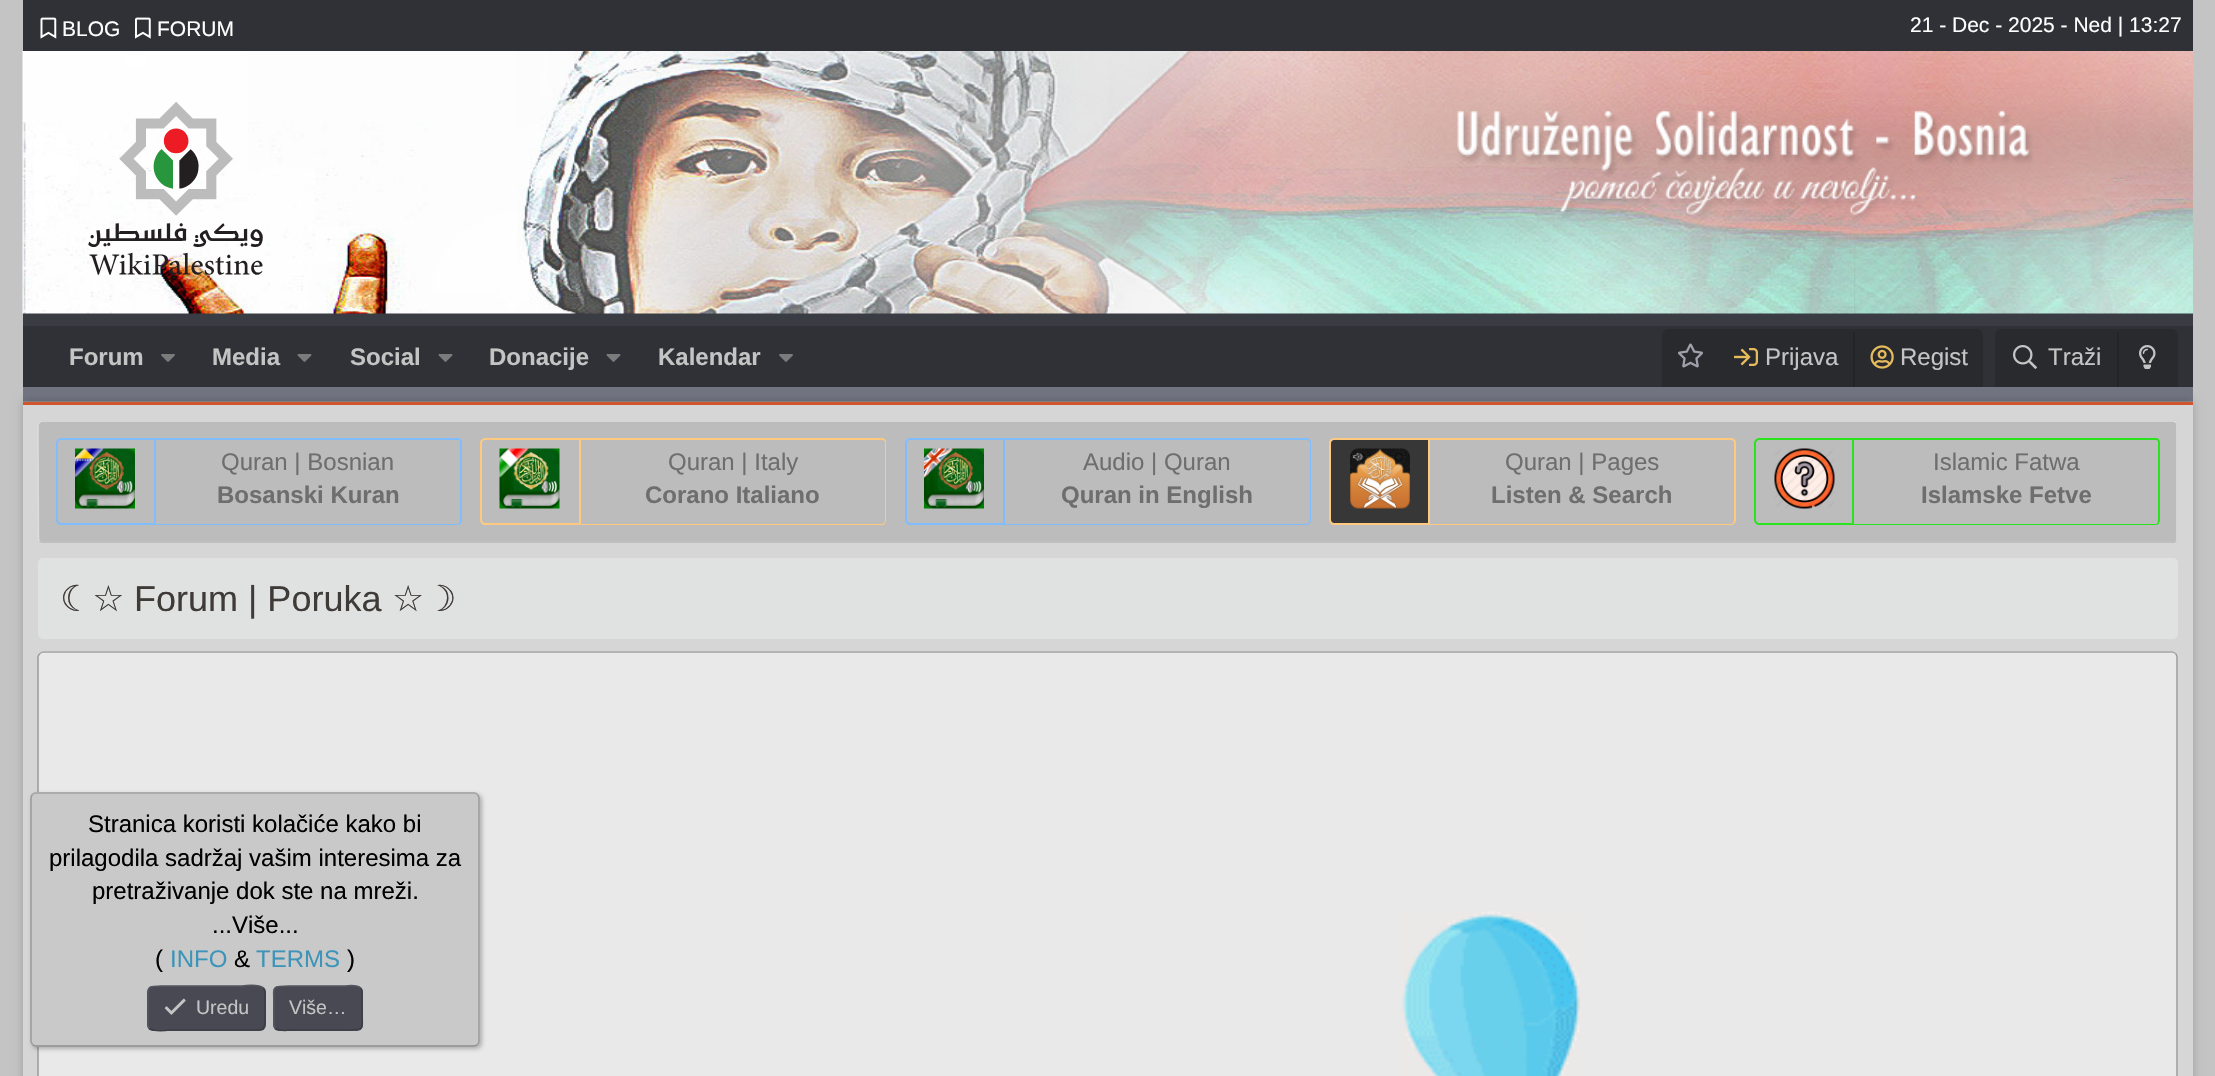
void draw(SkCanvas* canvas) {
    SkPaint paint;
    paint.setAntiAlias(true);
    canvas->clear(0xFFC4C4C4);
    paint.setColor(0xFF303136);
    canvas->drawRect(SkRect::MakeXYWH(23, 0, 2170, 51), paint);
    canvas->drawImageRect(SkImages::DeferredFromEncodedData(SkData::MakeFromFileName("img1.png")), SkRect::MakeXYWH(40, 17, 17, 22), SkSamplingOptions());
    SkFont font1(fontMgr->matchFamilyStyle("Liberation Sans", SkFontStyle::Normal()), 21);
    font1.setSubpixel(true);
    paint.setColor(0xFFFFFFFF);
    canvas->drawString("BLOG", 62, 36, font1, paint);
    canvas->drawImageRect(SkImages::DeferredFromEncodedData(SkData::MakeFromFileName("img2.png")), SkRect::MakeXYWH(135, 17, 16, 22), SkSamplingOptions());
    canvas->drawString("FORUM", 157, 36, font1, paint);
    canvas->drawString("21 - Dec - 2025 - Ned | 13:27", 1910, 32, font1, paint);
    paint.setColor(0xFF3A3C43);
    canvas->drawRect(SkRect::MakeXYWH(23, 313, 2170, 13), paint);
    canvas->drawImageRect(SkImages::DeferredFromEncodedData(SkData::MakeFromFileName("img3.png")), SkRect::MakeXYWH(22, 51, 2171, 263), SkSamplingOptions());
    canvas->drawImageRect(SkImages::DeferredFromEncodedData(SkData::MakeFromFileName("img4.png")), SkRect::MakeXYWH(88, 102, 175, 173), SkSamplingOptions());
    canvas->drawImageRect(SkImages::DeferredFromEncodedData(SkData::MakeFromFileName("img5.png")), SkRect::MakeXYWH(1457, 110, 577, 111), SkSamplingOptions());
    paint.setColor(0xFF303136);
    canvas->drawRect(SkRect::MakeXYWH(23, 326, 2170, 61), paint);
    SkFont font2(fontMgr->matchFamilyStyle("Liberation Sans", SkFontStyle::Bold()), 24);
    font2.setSubpixel(true);
    paint.setColor(0xFFC4C4C4);
    canvas->drawString("Forum", 69, 365, font2, paint);
    canvas->drawImageRect(SkImages::DeferredFromEncodedData(SkData::MakeFromFileName("img6.png")), SkRect::MakeXYWH(161, 354, 14, 8), SkSamplingOptions());
    canvas->drawString("Media", 212, 365, font2, paint);
    canvas->drawImageRect(SkImages::DeferredFromEncodedData(SkData::MakeFromFileName("img7.png")), SkRect::MakeXYWH(297, 354, 15, 8), SkSamplingOptions());
    canvas->drawString("Social", 350, 365, font2, paint);
    canvas->drawImageRect(SkImages::DeferredFromEncodedData(SkData::MakeFromFileName("img7.png")), SkRect::MakeXYWH(438, 354, 15, 8), SkSamplingOptions());
    canvas->drawString("Donacije", 489, 365, font2, paint);
    canvas->drawImageRect(SkImages::DeferredFromEncodedData(SkData::MakeFromFileName("img7.png")), SkRect::MakeXYWH(606, 354, 15, 8), SkSamplingOptions());
    canvas->drawString("Kalendar", 658, 365, font2, paint);
    canvas->drawImageRect(SkImages::DeferredFromEncodedData(SkData::MakeFromFileName("img6.png")), SkRect::MakeXYWH(779, 354, 14, 8), SkSamplingOptions());
    paint.setColor(0xFF292A2E);
    canvas->drawPath(SkPathBuilder().moveTo(1668, 329).lineTo(1977, 329).cubicTo(1980.5f, 329, 1983, 331.5f, 1983, 335).lineTo(1983, 387).lineTo(1662, 387).lineTo(1662, 335).cubicTo(1662, 331.5f, 1664.5f, 329, 1668, 329).close().detach(), paint);
    canvas->drawImageRect(SkImages::DeferredFromEncodedData(SkData::MakeFromFileName("img8.png")), SkRect::MakeXYWH(1678, 343, 25, 25), SkSamplingOptions());
    canvas->drawImageRect(SkImages::DeferredFromEncodedData(SkData::MakeFromFileName("img9.png")), SkRect::MakeXYWH(1734, 348, 24, 18), SkSamplingOptions());
    SkFont font3(fontMgr->matchFamilyStyle("Liberation Sans", SkFontStyle::Normal()), 24);
    font3.setSubpixel(true);
    paint.setColor(0xFFC4C4C4);
    canvas->drawString("Prijava", 1765, 365, font3, paint);
    paint.setColor(0xFF232427);
    canvas->drawRect(SkRect::MakeXYWH(1853, 332, 2, 55), paint);
    canvas->drawImageRect(SkImages::DeferredFromEncodedData(SkData::MakeFromFileName("img10.png")), SkRect::MakeXYWH(1870, 345, 24, 24), SkSamplingOptions());
    paint.setColor(0xFFC4C4C4);
    canvas->drawString("Regist", 1900, 365, font3, paint);
    paint.setColor(0xFF292A2E);
    canvas->drawPath(SkPathBuilder().moveTo(2001, 329).lineTo(2172, 329).cubicTo(2175.5f, 329, 2178, 331.5f, 2178, 335).lineTo(2178, 387).lineTo(1995, 387).lineTo(1995, 335).cubicTo(1995, 331.5f, 1997.5f, 329, 2001, 329).close().detach(), paint);
    canvas->drawImageRect(SkImages::DeferredFromEncodedData(SkData::MakeFromFileName("img11.png")), SkRect::MakeXYWH(2013, 345, 24, 24), SkSamplingOptions());
    paint.setColor(0xFFC4C4C4);
    canvas->drawString("Traži", 2048, 365, font3, paint);
    paint.setColor(0xFF232427);
    canvas->drawRect(SkRect::MakeXYWH(2117, 332, 2, 55), paint);
    canvas->drawImageRect(SkImages::DeferredFromEncodedData(SkData::MakeFromFileName("img12.png")), SkRect::MakeXYWH(2139, 345, 17, 24), SkSamplingOptions());
    paint.setColor(0xFF717481);
    canvas->drawRect(SkRect::MakeXYWH(23, 387, 2170, 14), paint);
    paint.setColor(0xFF8E8E8E);
    canvas->drawRect(SkRect::MakeXYWH(23, 401, 2170, 1), paint);
    paint.setColor(0x33000000);
    paint.setMaskFilter(SkMaskFilter::MakeBlur(kNormal_SkBlurStyle, 4.5f));
    canvas->drawRect(SkRect::MakeXYWH(23, 402, 2170, 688), paint);
    paint.setMaskFilter(nullptr);
    paint.setColor(0xFFD6D6D6);
    canvas->drawRect(SkRect::MakeXYWH(23, 405, 2170, 671), paint);
    paint.setColor(0xFFD0542C);
    canvas->drawRect(SkRect::MakeXYWH(23, 402, 2170, 3), paint);
    paint.setColor(0xFFBCBCBC);
    canvas->drawRoundRect(SkRect::MakeXYWH(38, 420, 2140, 123), 5, 5, paint);
    paint.setStyle(SkPaint::kStroke_Style);
    paint.setStrokeWidth(1.5f);
    paint.setColor(0xFFDFDFDF);
    canvas->drawPath(SkPathBuilder().moveTo(39.5f, 422).lineTo(42, 421).lineTo(2173.5f, 421).lineTo(2176, 422).detach(), paint);
    paint.setColor(0xFFDDDDDD);
    canvas->drawPath(SkPathBuilder().moveTo(2176, 422).lineTo(2177, 424.5f).lineTo(2177, 539).lineTo(2176, 541).detach(), paint);
    paint.setColor(0xFFC0C0C0);
    canvas->drawPath(SkPathBuilder().moveTo(2176, 541).lineTo(2173.5f, 542).lineTo(42, 542).lineTo(39.5f, 541).detach(), paint);
    paint.setColor(0xFFDDDDDD);
    canvas->drawPath(SkPathBuilder().moveTo(39.5f, 541).lineTo(38.5f, 539).lineTo(38, 443.5f).lineTo(38, 424.5f).lineTo(39.5f, 422).detach(), paint);
    paint.setStrokeWidth(2);
    paint.setColor(0xFF80BDFF);
    canvas->drawPath(SkPathBuilder().moveTo(61, 439).lineTo(155, 439).lineTo(155, 524).lineTo(61, 524).cubicTo(59, 524, 57, 522, 57, 520).lineTo(57, 443).cubicTo(57, 441, 59, 439, 61, 439).close().detach(), paint);
    canvas->drawImageRect(SkImages::DeferredFromEncodedData(SkData::MakeFromFileName("img13.png")), SkRect::MakeXYWH(75, 448, 60, 61), SkSamplingOptions());
    paint.setStyle(SkPaint::kFill_Style);
    canvas->drawPath(SkPathBuilder(SkPathFillType::kEvenOdd).moveTo(156, 438).lineTo(458, 438).cubicTo(460, 438, 462, 440, 462, 442).lineTo(462, 520).cubicTo(462, 523, 460, 525, 458, 525).lineTo(156, 525).close().moveTo(156, 440).lineTo(458, 440).cubicTo(459, 440, 460, 441, 460, 442).lineTo(460, 520).cubicTo(460, 522, 459, 524, 458, 524).lineTo(156, 524).close().detach(), paint);
    paint.setColor(0xFF6E6E6E);
    canvas->drawString("Quran | Bosnian", 221, 470, font3, paint);
    canvas->drawString("Bosanski Kuran", 217, 503, font2, paint);
    paint.setStyle(SkPaint::kStroke_Style);
    paint.setColor(0xFFFFCA80);
    canvas->drawPath(SkPathBuilder().moveTo(485, 439).lineTo(580, 439).lineTo(580, 524).lineTo(485, 524).cubicTo(483, 524, 481, 522, 481, 520).lineTo(481, 443).cubicTo(481, 441, 483, 439, 485, 439).close().detach(), paint);
    canvas->drawImageRect(SkImages::DeferredFromEncodedData(SkData::MakeFromFileName("img14.png")), SkRect::MakeXYWH(499, 448, 61, 61), SkSamplingOptions());
    paint.setStyle(SkPaint::kFill_Style);
    canvas->drawPath(SkPathBuilder(SkPathFillType::kEvenOdd).moveTo(580, 438).lineTo(882, 438).cubicTo(884, 438, 886, 440, 886, 442).lineTo(886, 520).cubicTo(886, 523, 884, 525, 882, 525).lineTo(580, 525).close().moveTo(580, 440).lineTo(882, 440).cubicTo(884, 440, 885, 441, 885, 442).lineTo(885, 520).cubicTo(885, 522, 884, 524, 882, 524).lineTo(580, 524).close().detach(), paint);
    paint.setColor(0xFF6E6E6E);
    canvas->drawString("Quran | Italy", 668, 470, font3, paint);
    canvas->drawString("Corano Italiano", 645, 503, font2, paint);
    paint.setStyle(SkPaint::kStroke_Style);
    paint.setColor(0xFF80BDFF);
    canvas->drawPath(SkPathBuilder().moveTo(910, 439).lineTo(1004, 439).lineTo(1004, 524).lineTo(910, 524).cubicTo(908, 524, 906, 522, 906, 520).lineTo(906, 443).cubicTo(906, 441, 908, 439, 910, 439).close().detach(), paint);
    canvas->drawImageRect(SkImages::DeferredFromEncodedData(SkData::MakeFromFileName("img15.png")), SkRect::MakeXYWH(924, 448, 60, 61), SkSamplingOptions());
    paint.setStyle(SkPaint::kFill_Style);
    canvas->drawPath(SkPathBuilder(SkPathFillType::kEvenOdd).moveTo(1005, 438).lineTo(1306, 438).cubicTo(1309, 438, 1311, 440, 1311, 442).lineTo(1311, 520).cubicTo(1311, 523, 1309, 525, 1306, 525).lineTo(1005, 525).close().moveTo(1005, 440).lineTo(1306, 440).cubicTo(1308, 440, 1310, 441, 1310, 442).lineTo(1310, 520).cubicTo(1310, 522, 1308, 524, 1306, 524).lineTo(1005, 524).close().detach(), paint);
    paint.setColor(0xFF6E6E6E);
    canvas->drawString("Audio | Quran", 1083, 470, font3, paint);
    canvas->drawString("Quran in English", 1061, 503, font2, paint);
    paint.setColor(0xFF373737);
    canvas->drawPath(SkPathBuilder().moveTo(1334, 439).lineTo(1429, 439).lineTo(1429, 524).lineTo(1334, 524).cubicTo(1332, 524, 1330, 522, 1330, 520).lineTo(1330, 443).cubicTo(1330, 441, 1332, 439, 1334, 439).close().detach(), paint);
    paint.setStyle(SkPaint::kStroke_Style);
    paint.setColor(0xFFFFCA80);
    canvas->drawPath(SkPathBuilder().moveTo(1334, 439).lineTo(1429, 439).lineTo(1429, 524).lineTo(1334, 524).cubicTo(1332, 524, 1330, 522, 1330, 520).lineTo(1330, 443).cubicTo(1330, 441, 1332, 439, 1334, 439).close().detach(), paint);
    canvas->drawImageRect(SkImages::DeferredFromEncodedData(SkData::MakeFromFileName("img16.png")), SkRect::MakeXYWH(1350, 448, 60, 61), SkSamplingOptions());
    paint.setStyle(SkPaint::kFill_Style);
    canvas->drawPath(SkPathBuilder(SkPathFillType::kEvenOdd).moveTo(1430, 438).lineTo(1731, 438).cubicTo(1733, 438, 1736, 440, 1736, 442).lineTo(1736, 520).cubicTo(1736, 523, 1733, 525, 1731, 525).lineTo(1430, 525).close().moveTo(1430, 440).lineTo(1731, 440).cubicTo(1733, 440, 1734, 441, 1734, 442).lineTo(1734, 520).cubicTo(1734, 522, 1733, 524, 1731, 524).lineTo(1430, 524).close().detach(), paint);
    paint.setColor(0xFF6E6E6E);
    canvas->drawString("Quran | Pages", 1505, 470, font3, paint);
    canvas->drawString("Listen & Search", 1491, 503, font2, paint);
    paint.setStyle(SkPaint::kStroke_Style);
    paint.setColor(0xFF29E31C);
    canvas->drawPath(SkPathBuilder().moveTo(1759, 439).lineTo(1853, 439).lineTo(1853, 524).lineTo(1759, 524).cubicTo(1757, 524, 1755, 522, 1755, 520).lineTo(1755, 443).cubicTo(1755, 441, 1757, 439, 1759, 439).close().detach(), paint);
    canvas->drawImageRect(SkImages::DeferredFromEncodedData(SkData::MakeFromFileName("img17.png")), SkRect::MakeXYWH(1774, 448, 61, 61), SkSamplingOptions());
    paint.setStyle(SkPaint::kFill_Style);
    canvas->drawPath(SkPathBuilder(SkPathFillType::kEvenOdd).moveTo(1854, 438).lineTo(2156, 438).cubicTo(2158, 438, 2160, 440, 2160, 442).lineTo(2160, 520).cubicTo(2160, 523, 2158, 525, 2156, 525).lineTo(1854, 525).close().moveTo(1854, 440).lineTo(2156, 440).cubicTo(2157, 440, 2158, 441, 2158, 442).lineTo(2158, 520).cubicTo(2158, 522, 2157, 524, 2156, 524).lineTo(1854, 524).close().detach(), paint);
    paint.setColor(0xFF6E6E6E);
    canvas->drawString("Islamic Fatwa", 1933, 470, font3, paint);
    canvas->drawString("Islamske Fetve", 1921, 503, font2, paint);
    paint.setColor(0xFFE0E1E1);
    canvas->drawRoundRect(SkRect::MakeXYWH(38, 558, 2140, 81), 5, 5, paint);
    SkFont font4(fontMgr->matchFamilyStyle("DejaVu Sans", SkFontStyle::Normal()), 36);
    font4.setSubpixel(true);
    paint.setColor(0xFF3F3B38);
    canvas->drawString("☾☆", 60, 611, font4, paint);
    SkFont font5(fontMgr->matchFamilyStyle("Liberation Sans", SkFontStyle::Normal()), 36);
    font5.setSubpixel(true);
    canvas->drawString("Forum | Poruka", 134, 611, font5, paint);
    canvas->drawString("☆☽", 392, 611, font4, paint);
    paint.setColor(0xFFE9E9E9);
    canvas->drawRoundRect(SkRect::MakeXYWH(38, 651, 2140, 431), 6, 6, paint);
    paint.setStyle(SkPaint::kStroke_Style);
    paint.setStrokeWidth(1.5f);
    paint.setColor(0xFFA3A3A3);
    canvas->drawPath(SkPathBuilder().moveTo(40, 653.5f).cubicTo(41, 652.5f, 42, 652, 43.5f, 652).lineTo(2172, 652).cubicTo(2173.5f, 652, 2174.5f, 652.5f, 2175.5f, 653.5f).detach(), paint);
    paint.setColor(0xFF9B9B9B);
    canvas->drawPath(SkPathBuilder().moveTo(2175.5f, 653.5f).cubicTo(2176.5f, 654.5f, 2177, 655.5f, 2177, 657).lineTo(2177, 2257.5f).cubicTo(2177, 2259, 2176.5f, 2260, 2175.5f, 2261).detach(), paint);
    canvas->drawPath(SkPathBuilder().moveTo(40, 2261).cubicTo(39, 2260, 38, 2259, 38, 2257.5f).lineTo(38, 657).cubicTo(38, 655.5f, 39, 654.5f, 40, 653.5f).detach(), paint);
    canvas->drawImageRect(SkImages::DeferredFromEncodedData(SkData::MakeFromFileName("img18.png")), SkRect::MakeXYWH(1401, 911, 180, 165), SkSamplingOptions());
    paint.setStyle(SkPaint::kFill_Style);
    paint.setColor(0x40000000);
    paint.setMaskFilter(SkMaskFilter::MakeBlur(kNormal_SkBlurStyle, 2));
    canvas->drawRoundRect(SkRect::MakeXYWH(32, 794, 450, 255), 6, 6, paint);
    paint.setMaskFilter(nullptr);
    paint.setColor(0xFFC9C9C9);
    canvas->drawRoundRect(SkRect::MakeXYWH(30, 792, 450, 255), 6, 6, paint);
    paint.setStyle(SkPaint::kStroke_Style);
    paint.setColor(0xFFA3A3A3);
    canvas->drawPath(SkPathBuilder().moveTo(32.5f, 794.5f).cubicTo(33.5f, 793.5f, 34.5f, 793, 36, 793).lineTo(474, 793).cubicTo(475.5f, 793, 476.5f, 793.5f, 477.5f, 794.5f).detach(), paint);
    paint.setColor(0xFF9B9B9B);
    canvas->drawPath(SkPathBuilder().moveTo(477.5f, 794.5f).lineTo(479, 797.5f).lineTo(479, 1041).cubicTo(479, 1042.5f, 478.5f, 1043.5f, 477.5f, 1044.5f).detach(), paint);
    paint.setColor(0xFF8E8E8E);
    canvas->drawPath(SkPathBuilder().moveTo(477.5f, 1044.5f).cubicTo(476.5f, 1045.5f, 475.5f, 1046, 474, 1046).lineTo(36, 1046).cubicTo(34.5f, 1046, 33.5f, 1045.5f, 32.5f, 1044.5f).detach(), paint);
    paint.setColor(0xFF9B9B9B);
    canvas->drawPath(SkPathBuilder().moveTo(32.5f, 1044.5f).lineTo(31, 1041.5f).lineTo(31, 798).cubicTo(31, 796.5f, 31.5f, 795.5f, 32.5f, 794.5f).detach(), paint);
    paint.setStyle(SkPaint::kFill_Style);
    paint.setColor(0xFF000000);
    canvas->drawString("Stranica koristi kolačiće kako bi", 88, 832, font3, paint);
    canvas->drawString("prilagodila sadržaj vašim interesima za", 49, 866, font3, paint);
    canvas->drawString("pretraživanje dok ste na mreži.", 92, 899, font3, paint);
    canvas->drawString("...Više...", 212, 933, font3, paint);
    canvas->drawString("(", 155, 967, font3, paint);
    paint.setColor(0xFF3D94B9);
    canvas->drawString("INFO", 170, 967, font3, paint);
    paint.setColor(0xFF000000);
    canvas->drawString("&", 234, 967, font3, paint);
    paint.setColor(0xFF3D94B9);
    canvas->drawString("TERMS", 256, 967, font3, paint);
    paint.setColor(0xFF000000);
    canvas->drawString(")", 347, 967, font3, paint);
    paint.setColor(0xFF484952);
    canvas->drawRoundRect(SkRect::MakeXYWH(147, 986, 119, 45), 6, 6, paint);
    paint.setStyle(SkPaint::kStroke_Style);
    paint.setColor(0xFF3C3D44);
    canvas->drawPath(SkPathBuilder().moveTo(263, 988).cubicTo(265.5f, 990, 265, 994, 265, 997).lineTo(265, 1008).cubicTo(265, 1033, 268, 1030, 242, 1030).lineTo(171, 1030).cubicTo(170.5f, 1030, 153.5f, 1032.5f, 149.5f, 1028).detach(), paint);
    paint.setColor(0xFF54555F);
    canvas->drawPath(SkPathBuilder().moveTo(149.5f, 1028).cubicTo(147, 1026, 148, 1022, 148, 1019).lineTo(148, 1008).cubicTo(148, 983, 144.5f, 986, 171, 986).lineTo(242, 986).cubicTo(242, 986, 259, 983.5f, 263, 988).detach(), paint);
    canvas->drawImageRect(SkImages::DeferredFromEncodedData(SkData::MakeFromFileName("img19.png")), SkRect::MakeXYWH(164, 998, 22, 17), SkSamplingOptions());
    SkFont font6(fontMgr->matchFamilyStyle("Liberation Sans", SkFontStyle::Normal()), 19.5f);
    font6.setSubpixel(true);
    paint.setStyle(SkPaint::kFill_Style);
    paint.setColor(0xFFC4C4C4);
    canvas->drawString("Uredu", 196, 1014, font6, paint);
    paint.setColor(0xFF484952);
    canvas->drawRoundRect(SkRect::MakeXYWH(273, 986, 90, 45), 6, 6, paint);
    paint.setStyle(SkPaint::kStroke_Style);
    paint.setColor(0xFF3C3D44);
    canvas->drawPath(SkPathBuilder().moveTo(360.5f, 988).cubicTo(363, 990, 362, 994, 362, 997).lineTo(362, 1008).cubicTo(362, 1031, 366.5f, 1030, 344, 1030).lineTo(292, 1030).cubicTo(291, 1030, 279, 1032, 275.5f, 1028).detach(), paint);
    paint.setColor(0xFF54555F);
    canvas->drawPath(SkPathBuilder().moveTo(275.5f, 1028).cubicTo(273, 1026, 274, 1022, 274, 1019).lineTo(274, 1008).cubicTo(274, 985, 269.5f, 986, 292, 986).lineTo(344, 986).cubicTo(345, 986, 357, 984, 360.5f, 988).detach(), paint);
    paint.setStyle(SkPaint::kFill_Style);
    paint.setColor(0xFFC4C4C4);
    canvas->drawString("Više…", 289, 1014, font6, paint);
}
